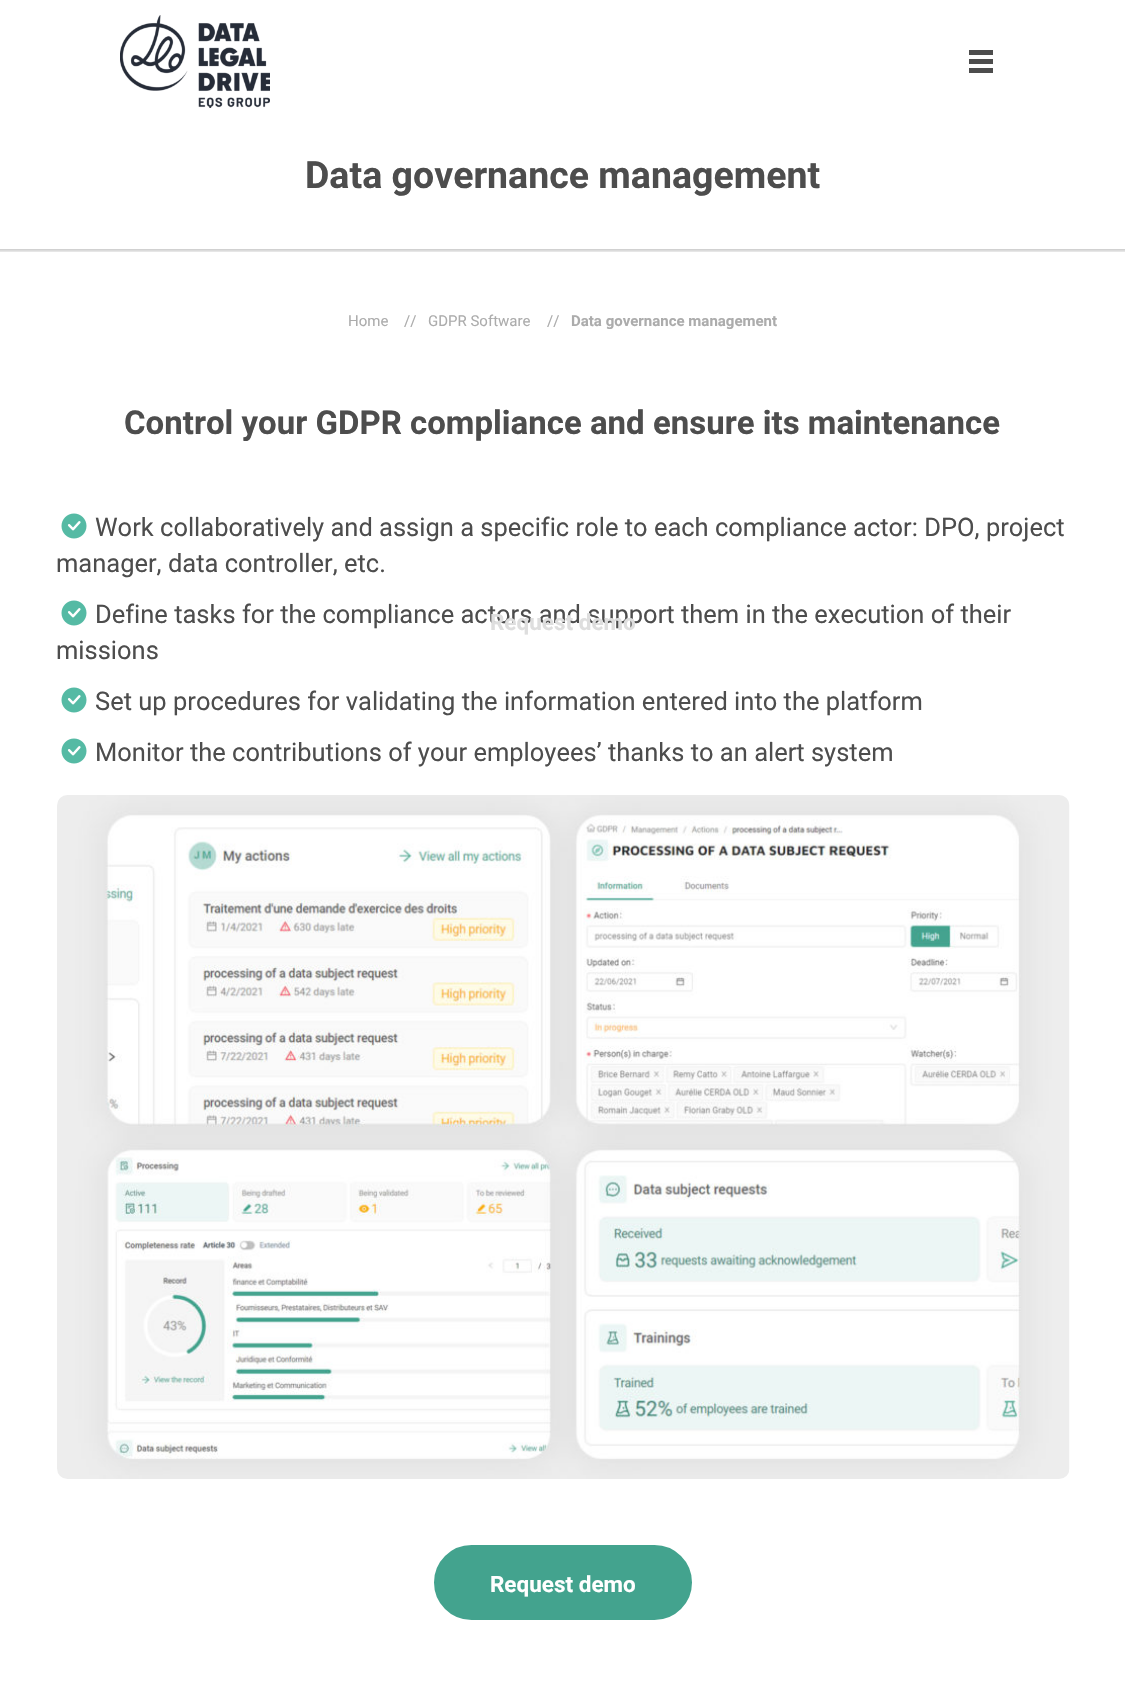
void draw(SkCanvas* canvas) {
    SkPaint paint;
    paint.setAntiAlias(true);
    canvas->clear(0xFFFFFFFF);
    SkFont font1(fontMgr->matchFamilyStyle("Roboto", SkFontStyle::Bold()), 37.5f);
    font1.setSubpixel(true);
    paint.setColor(0xFF4D4D4D);
    canvas->drawString("Data governance management", 305, 188, font1, paint);
    {
        const SkColor colors[] = {0xFFCCCCCC, 0xFFFFFFFF};
        const float stops[] = {0, 1};
        const SkPoint ends[] = {{563, 249}, {563, 254}};
        paint.setShader(SkGradientShader::MakeLinear(ends, colors, stops, 2, SkTileMode::kClamp));
        paint.setAlpha(255);
    }
    canvas->drawRect(SkRect::MakeXYWH(0, 249, 1125, 3), paint);
    canvas->drawImageRect(SkImages::DeferredFromEncodedData(SkData::MakeFromFileName("img1.png")), SkRect::MakeXYWH(120, 15, 150, 93), SkSamplingOptions());
    paint.setShader(nullptr);
    paint.setColor(0xFF4D4D4D);
    canvas->drawRect(SkRect::MakeXYWH(969, 59, 24, 5), paint);
    canvas->drawRect(SkRect::MakeXYWH(969, 50, 24, 5), paint);
    canvas->drawRect(SkRect::MakeXYWH(969, 68, 24, 5), paint);
    SkFont font2(fontMgr->matchFamilyStyle("Roboto", SkFontStyle::Normal()), 25.5f);
    font2.setSubpixel(true);
    canvas->drawString("Define tasks for the compliance actors and support them in the execution of their", 95, 623, font2, paint);
    SkFont font3(fontMgr->matchFamilyStyle("Roboto", SkFontStyle::Bold()), 22.5f);
    font3.setSubpixel(true);
    paint.setColor(0xFFDEDEDE);
    canvas->drawString("Request demo", 490, 630, font3, paint);
    SkFont font4(fontMgr->matchFamilyStyle("Roboto", SkFontStyle::Normal()), 15);
    font4.setSubpixel(true);
    paint.setColor(0xFFACACAC);
    canvas->drawString("Home", 348, 326, font4, paint);
    canvas->drawString("//", 404, 326, font4, paint);
    canvas->drawString("GDPR Software", 428, 326, font4, paint);
    canvas->drawString("//", 547, 326, font4, paint);
    SkFont font5(fontMgr->matchFamilyStyle("Roboto", SkFontStyle::Bold()), 15);
    font5.setSubpixel(true);
    canvas->drawString("Data governance management", 571, 326, font5, paint);
    SkFont font6(fontMgr->matchFamilyStyle("Roboto", SkFontStyle::Bold()), 33);
    font6.setSubpixel(true);
    paint.setColor(0xFF4D4D4D);
    canvas->drawString("Control your GDPR compliance and ensure its maintenance", 124, 434, font6, paint);
    canvas->drawImageRect(SkImages::DeferredFromEncodedData(SkData::MakeFromFileName("img2.png")), SkRect::MakeXYWH(61, 513, 26, 26), SkSamplingOptions());
    canvas->drawString("Work collaboratively and assign a specific role to each compliance actor: DPO, project", 95, 536, font2, paint);
    canvas->drawString("manager, data controller, etc.", 56, 572, font2, paint);
    canvas->drawImageRect(SkImages::DeferredFromEncodedData(SkData::MakeFromFileName("img2.png")), SkRect::MakeXYWH(61, 600, 26, 26), SkSamplingOptions());
    canvas->drawString("missions", 56, 659, font2, paint);
    canvas->drawImageRect(SkImages::DeferredFromEncodedData(SkData::MakeFromFileName("img2.png")), SkRect::MakeXYWH(61, 687, 26, 26), SkSamplingOptions());
    canvas->drawString("Set up procedures for validating the information entered into the platform", 95, 710, font2, paint);
    canvas->drawImageRect(SkImages::DeferredFromEncodedData(SkData::MakeFromFileName("img2.png")), SkRect::MakeXYWH(61, 738, 26, 26), SkSamplingOptions());
    canvas->drawString("Monitor the contributions of your employees’ thanks to an alert system", 95, 761, font2, paint);
    canvas->drawImageRect(SkImages::DeferredFromEncodedData(SkData::MakeFromFileName("img3.png")), SkRect::MakeXYWH(57, 795, 1013, 684), SkSamplingOptions());
    paint.setColor(0xFF43A38E);
    canvas->drawRoundRect(SkRect::MakeXYWH(435.5f, 1546.5f, 255, 72), 36, 36, paint);
    paint.setStyle(SkPaint::kStroke_Style);
    paint.setStrokeWidth(3);
    canvas->drawRoundRect(SkRect::MakeXYWH(435.5f, 1546.5f, 255, 72), 36, 36, paint);
    paint.setStyle(SkPaint::kFill_Style);
    paint.setColor(0xFFFFFFFF);
    canvas->drawString("Request demo", 490, 1592, font3, paint);
}
